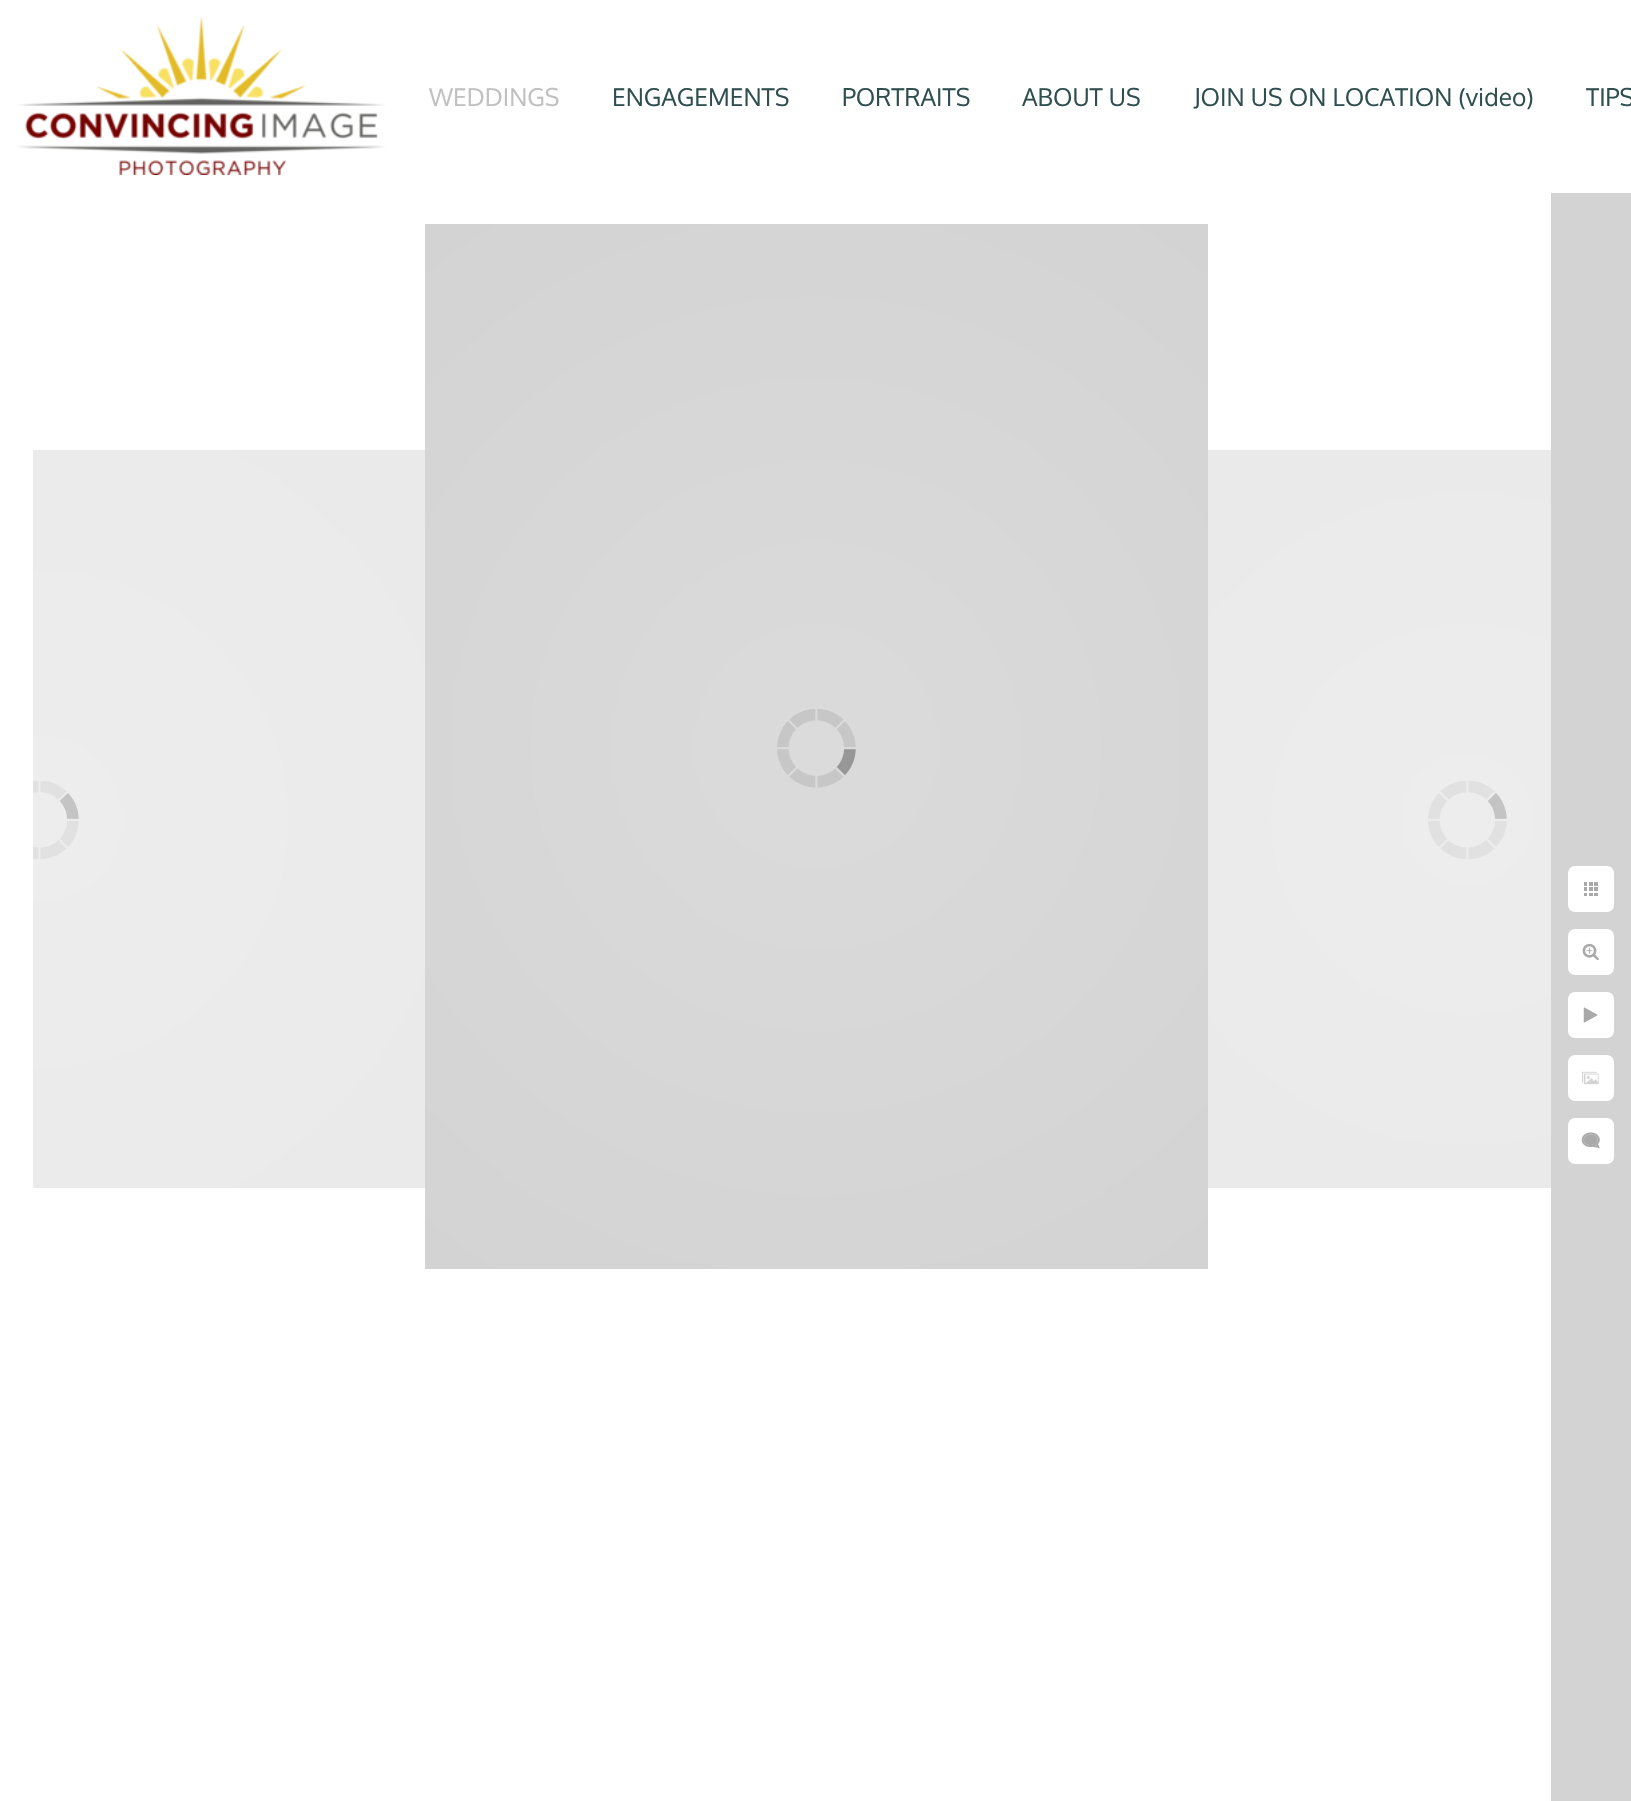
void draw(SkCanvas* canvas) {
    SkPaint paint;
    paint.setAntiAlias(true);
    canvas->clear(0xFFFFFFFF);
    canvas->drawImageRect(SkImages::DeferredFromEncodedData(SkData::MakeFromFileName("img1.png")), SkRect::MakeXYWH(18, 17, 367, 158), SkSamplingOptions());
    SkFont font1(fontMgr->matchFamilyStyle("Oxygen", SkFontStyle::Normal()), 24.5f);
    font1.setSubpixel(true);
    paint.setColor(0xFFC0C0C0);
    canvas->drawString("WEDDINGS", 429, 106, font1, paint);
    paint.setColor(0xFF2F4F4F);
    canvas->drawString("ENGAGEMENTS", 612, 106, font1, paint);
    canvas->drawString("PORTRAITS", 842, 106, font1, paint);
    canvas->drawString("ABOUT US", 1022, 106, font1, paint);
    canvas->drawString("JOIN US ON LOCATION (video)", 1194, 106, font1, paint);
    canvas->drawString("TIPS", 1586, 106, font1, paint);
    {
        const SkColor colors[] = {0xFFEDEDED, 0xFFE9E9E9};
        const float stops[] = {0, 1};
        paint.setShader(SkGradientShader::MakeRadial({39, 819}, 664, colors, stops, 2, SkTileMode::kClamp));
        paint.setAlpha(255);
    }
    canvas->drawRect(SkRect::MakeXYWH(33, 450, 392, 738), paint);
    canvas->drawImageRect(SkImages::DeferredFromEncodedData(SkData::MakeFromFileName("img2.png")), SkRect::MakeXYWH(33, 781, 46, 78), SkSamplingOptions());
    {
        const SkColor colors[] = {0xFFDBDBDB, 0xFFD3D3D3};
        const float stops[] = {0, 1};
        paint.setShader(SkGradientShader::MakeRadial({816, 746}, 653, colors, stops, 2, SkTileMode::kClamp));
        paint.setAlpha(255);
    }
    canvas->drawRect(SkRect::MakeXYWH(425, 224, 783, 1045), paint);
    canvas->drawImageRect(SkImages::DeferredFromEncodedData(SkData::MakeFromFileName("img3.png")), SkRect::MakeXYWH(777, 709, 79, 79), SkSamplingOptions());
    {
        const SkColor colors[] = {0xFFEDEDED, 0xFFE9E9E9};
        const float stops[] = {0, 1};
        paint.setShader(SkGradientShader::MakeRadial({1467, 819}, 522, colors, stops, 2, SkTileMode::kClamp));
        paint.setAlpha(255);
    }
    canvas->drawRect(SkRect::MakeXYWH(1208, 450, 343, 738), paint);
    canvas->drawImageRect(SkImages::DeferredFromEncodedData(SkData::MakeFromFileName("img4.png")), SkRect::MakeXYWH(1428, 781, 79, 78), SkSamplingOptions());
    paint.setShader(nullptr);
    paint.setColor(0xFFD3D3D3);
    canvas->drawRect(SkRect::MakeXYWH(1551, 193, 80, 1608), paint);
    paint.setColor(0xFFFFFFFF);
    canvas->drawRoundRect(SkRect::MakeXYWH(1568, 866, 46, 46), 7, 7, paint);
    canvas->drawImageRect(SkImages::DeferredFromEncodedData(SkData::MakeFromFileName("img5.png")), SkRect::MakeXYWH(1584, 882, 14, 14), SkSamplingOptions());
    canvas->drawRoundRect(SkRect::MakeXYWH(1568, 929, 46, 46), 7, 7, paint);
    canvas->drawImageRect(SkImages::DeferredFromEncodedData(SkData::MakeFromFileName("img6.png")), SkRect::MakeXYWH(1582, 943, 17, 18), SkSamplingOptions());
    canvas->drawRoundRect(SkRect::MakeXYWH(1568, 992, 46, 46), 7, 7, paint);
    canvas->drawImageRect(SkImages::DeferredFromEncodedData(SkData::MakeFromFileName("img7.png")), SkRect::MakeXYWH(1583, 1007, 15, 16), SkSamplingOptions());
    canvas->drawRoundRect(SkRect::MakeXYWH(1568, 1055, 46, 46), 7, 7, paint);
    canvas->drawImageRect(SkImages::DeferredFromEncodedData(SkData::MakeFromFileName("img8.png")), SkRect::MakeXYWH(1582, 1071, 17, 14), SkSamplingOptions());
    canvas->drawRoundRect(SkRect::MakeXYWH(1568, 1118, 46, 46), 7, 7, paint);
    canvas->drawImageRect(SkImages::DeferredFromEncodedData(SkData::MakeFromFileName("img9.png")), SkRect::MakeXYWH(1581, 1132, 19, 17), SkSamplingOptions());
}
